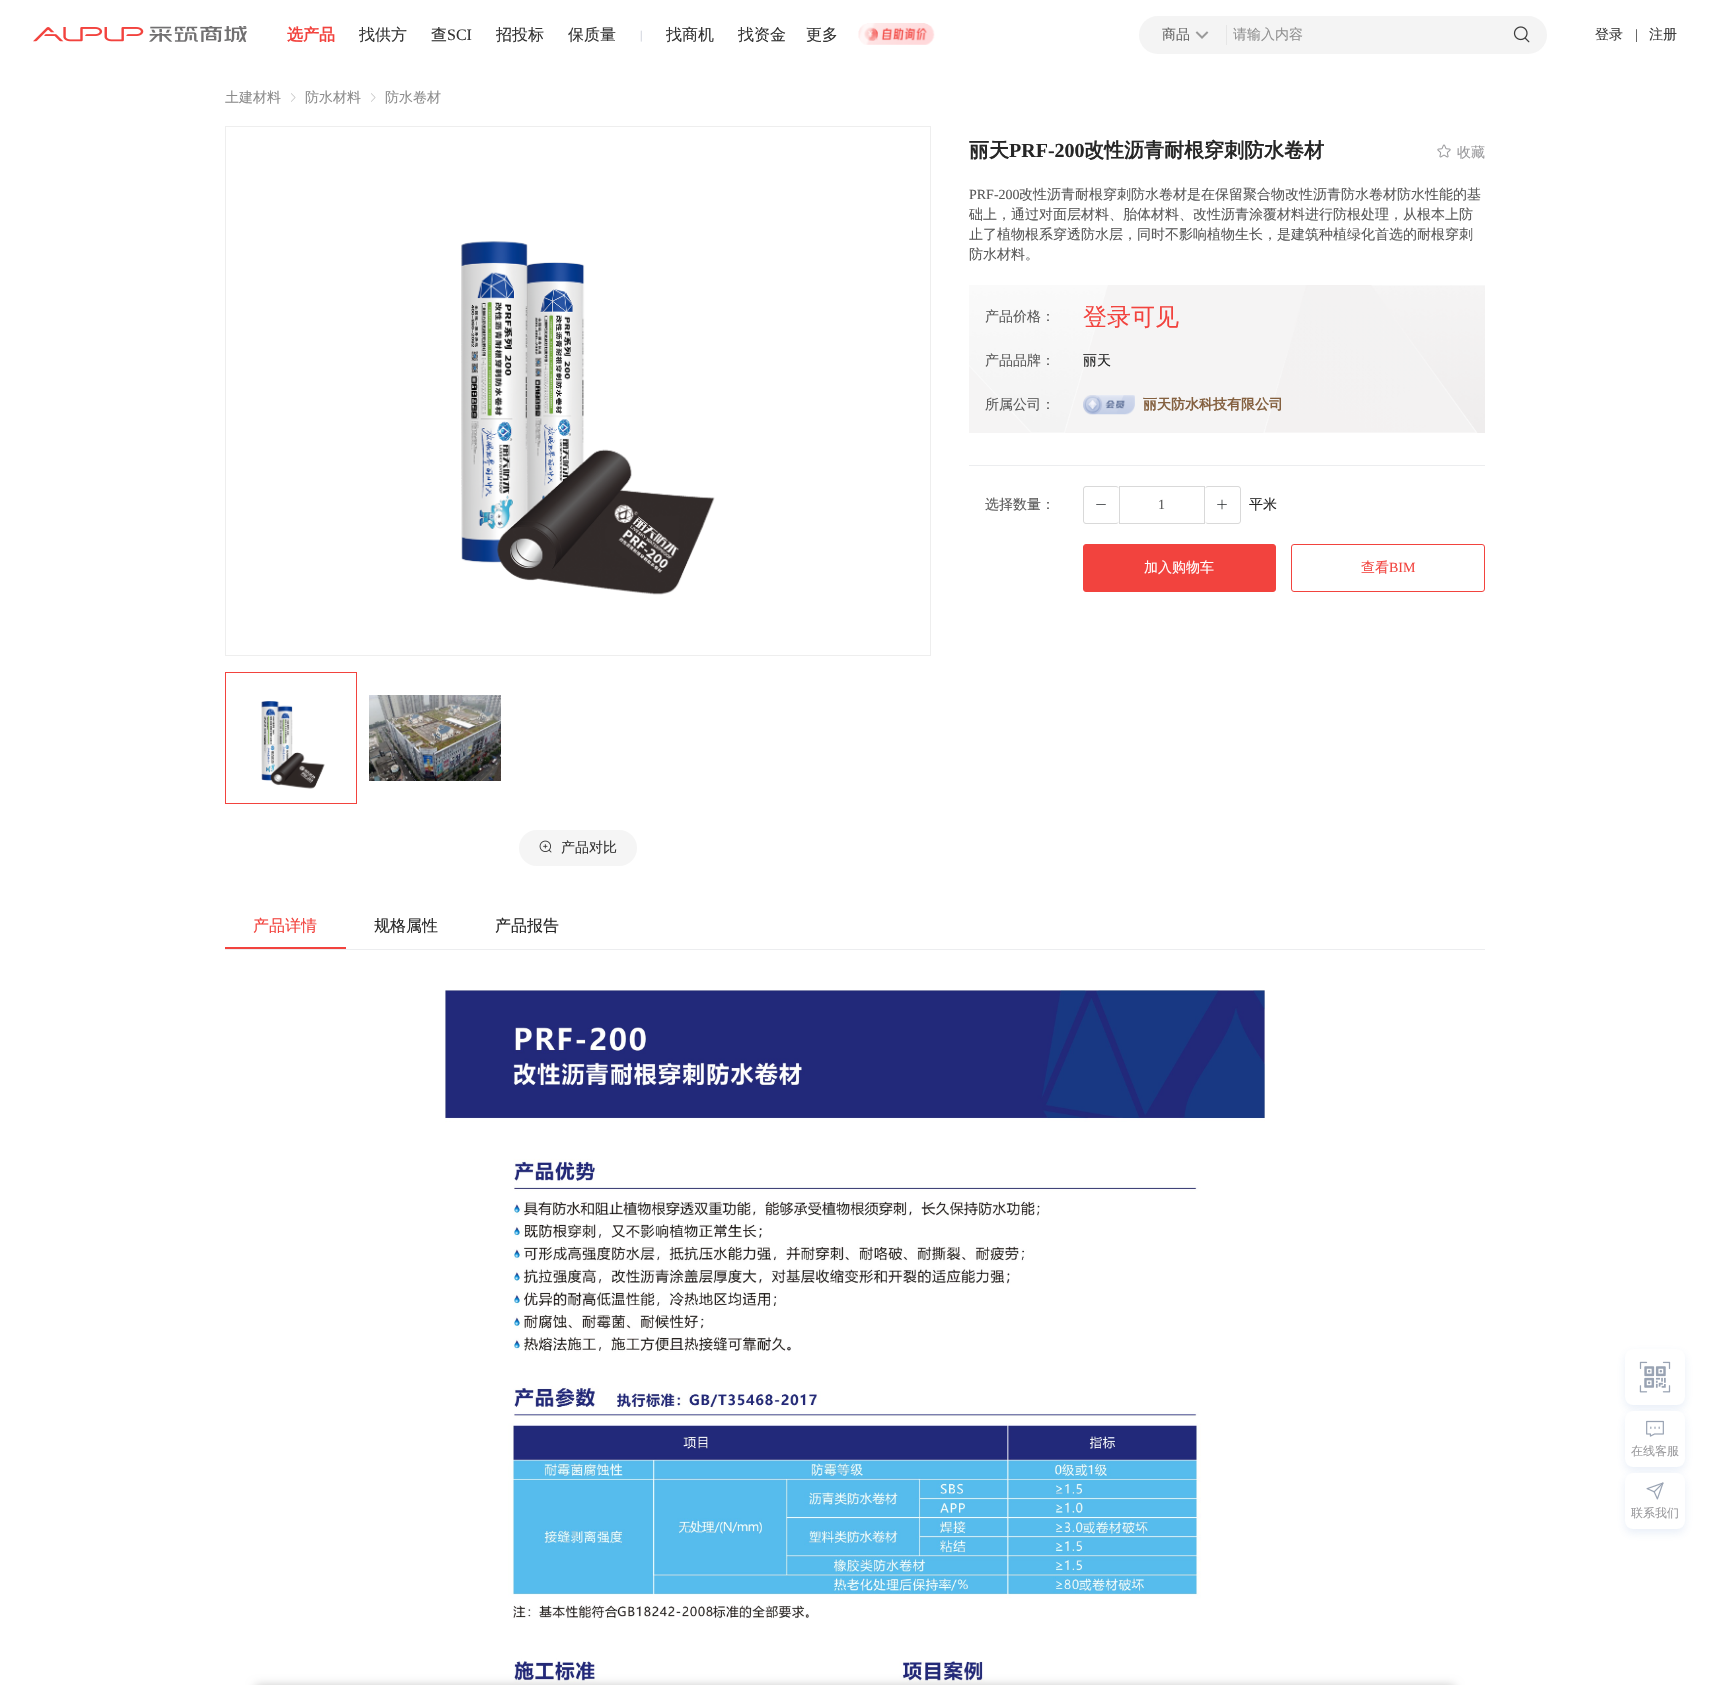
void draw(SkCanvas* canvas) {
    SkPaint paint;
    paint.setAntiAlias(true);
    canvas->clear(0xFFFFFFFF);
    canvas->drawImageRect(SkImages::DeferredFromEncodedData(SkData::MakeFromFileName("img1.png")), SkRect::MakeXYWH(33, 26, 214, 16), SkSamplingOptions());
    SkFont font1(fontMgr->matchFamilyStyle("WenQuanYi Zen Hei", SkFontStyle::Bold()), 16);
    font1.setSubpixel(true);
    paint.setColor(0xFFF2433E);
    canvas->drawString("选产品", 287, 40, font1, paint);
    SkFont font2(fontMgr->matchFamilyStyle("WenQuanYi Zen Hei", SkFontStyle(500, SkFontStyle::kNormal_Width, SkFontStyle::kUpright_Slant)), 16);
    font2.setSubpixel(true);
    paint.setColor(0xFF333333);
    canvas->drawString("找供方", 359, 40, font2, paint);
    canvas->drawString("查", 431, 40, font2, paint);
    SkFont font3(fontMgr->matchFamilyStyle("Liberation Serif", SkFontStyle::Normal()), 16);
    font3.setSubpixel(true);
    canvas->drawString("SCI", 447, 40, font3, paint);
    canvas->drawString("招投标", 496, 40, font2, paint);
    canvas->drawString("保质量", 568, 40, font2, paint);
    SkFont font4(fontMgr->matchFamilyStyle("Liberation Serif", SkFontStyle::Normal()), 12);
    font4.setSubpixel(true);
    paint.setColor(0xFFC5CAD5);
    canvas->drawString("|", 640, 39, font4, paint);
    paint.setColor(0xFF333333);
    canvas->drawString("找商机", 666, 40, font2, paint);
    canvas->drawString("找资金", 738, 40, font2, paint);
    canvas->drawString("更多", 806, 40, font2, paint);
    canvas->drawImageRect(SkImages::DeferredFromEncodedData(SkData::MakeFromFileName("img2.png")), SkRect::MakeXYWH(858, 23, 77, 22), SkSamplingOptions());
    paint.setColor(0xFFF4F4F4);
    canvas->drawRoundRect(SkRect::MakeXYWH(1139, 16, 408, 38), 19, 19, paint);
    SkFont font5(fontMgr->matchFamilyStyle("WenQuanYi Zen Hei", SkFontStyle(500, SkFontStyle::kNormal_Width, SkFontStyle::kUpright_Slant)), 14);
    font5.setSubpixel(true);
    paint.setColor(0xFF666666);
    canvas->drawString("商品", 1162, 39, font5, paint);
    canvas->drawImageRect(SkImages::DeferredFromEncodedData(SkData::MakeFromFileName("img3.png")), SkRect::MakeXYWH(1195, 31, 14, 8), SkSamplingOptions());
    paint.setColor(0xFFE6E6E6);
    canvas->drawRect(SkRect::MakeXYWH(1226, 25, 1, 20), paint);
    paint.setColor(0xFF929292);
    canvas->drawString("请输入内容", 1233, 39, font5, paint);
    canvas->drawImageRect(SkImages::DeferredFromEncodedData(SkData::MakeFromFileName("img4.png")), SkRect::MakeXYWH(1513, 26, 17, 17), SkSamplingOptions());
    paint.setColor(0xFF3C3C3C);
    canvas->drawString("登录", 1595, 39, font5, paint);
    SkFont font6(fontMgr->matchFamilyStyle("Liberation Serif", SkFontStyle::Normal()), 14);
    font6.setSubpixel(true);
    canvas->drawString("|", 1635, 39, font6, paint);
    canvas->drawString("注册", 1649, 39, font5, paint);
    paint.setColor(0xFF8C8C8C);
    canvas->drawString("土建材料", 225, 102, font5, paint);
    canvas->drawImageRect(SkImages::DeferredFromEncodedData(SkData::MakeFromFileName("img5.png")), SkRect::MakeXYWH(291, 93, 5, 9), SkSamplingOptions());
    canvas->drawString("防水材料", 305, 102, font5, paint);
    canvas->drawImageRect(SkImages::DeferredFromEncodedData(SkData::MakeFromFileName("img5.png")), SkRect::MakeXYWH(371, 93, 5, 9), SkSamplingOptions());
    canvas->drawString("防水卷材", 385, 102, font5, paint);
    SkFont font7(fontMgr->matchFamilyStyle("WenQuanYi Zen Hei", SkFontStyle::Bold()), 20);
    font7.setSubpixel(true);
    paint.setColor(0xFF262626);
    canvas->drawString("丽天", 969, 157, font7, paint);
    SkFont font8(fontMgr->matchFamilyStyle("Liberation Serif", SkFontStyle::Bold()), 20);
    font8.setSubpixel(true);
    canvas->drawString("PRF-200", 1009, 157, font8, paint);
    canvas->drawString("改性沥青耐根穿刺防水卷材", 1084, 157, font7, paint);
    canvas->drawImageRect(SkImages::DeferredFromEncodedData(SkData::MakeFromFileName("img6.png")), SkRect::MakeXYWH(1437, 144, 14, 14), SkSamplingOptions());
    paint.setColor(0xFF99999C);
    canvas->drawString("收藏", 1457, 157, font5, paint);
    paint.setColor(0xFF595959);
    canvas->drawString("PRF-200", 969, 199, font6, paint);
    canvas->drawString("改性沥青耐根穿刺防水卷材是在保留聚合物改性沥青防水卷材防水性能的基", 1019, 199, font5, paint);
    canvas->drawString("础上，通过对面层材料、胎体材料、改性沥青涂覆材料进行防根处理，从根本上防", 969, 219, font5, paint);
    canvas->drawString("止了植物根系穿透防水层，同时不影响植物生长，是建筑种植绿化首选的耐根穿刺", 969, 239, font5, paint);
    canvas->drawString("防水材料。", 969, 259, font5, paint);
    canvas->drawImageRect(SkImages::DeferredFromEncodedData(SkData::MakeFromFileName("img7.png")), SkRect::MakeXYWH(969, 285, 516, 148), SkSamplingOptions());
    canvas->drawString("产品价格：", 985, 321, font5, paint);
    SkFont font9(fontMgr->matchFamilyStyle("WenQuanYi Zen Hei", SkFontStyle(500, SkFontStyle::kNormal_Width, SkFontStyle::kUpright_Slant)), 24);
    font9.setSubpixel(true);
    paint.setColor(0xFFF2433E);
    canvas->drawString("登录可见", 1083, 325, font9, paint);
    paint.setColor(0xFF595959);
    canvas->drawString("产品品牌：", 985, 365, font5, paint);
    paint.setColor(0xFF262626);
    canvas->drawString("丽天", 1083, 365, font5, paint);
    paint.setColor(0xFF595959);
    canvas->drawString("所属公司：", 985, 409, font5, paint);
    canvas->drawImageRect(SkImages::DeferredFromEncodedData(SkData::MakeFromFileName("img8.png")), SkRect::MakeXYWH(1083, 395, 52, 20), SkSamplingOptions());
    SkFont font10(fontMgr->matchFamilyStyle("WenQuanYi Zen Hei", SkFontStyle::Bold()), 14);
    font10.setSubpixel(true);
    paint.setColor(0xFF84603F);
    canvas->drawString("丽天防水科技有限公司", 1143, 409, font10, paint);
    paint.setColor(0xFFECEDEF);
    canvas->drawRect(SkRect::MakeXYWH(969, 465, 516, 1), paint);
    paint.setColor(0xFF595959);
    canvas->drawString("选择数量：", 985, 509, font5, paint);
    paint.setColor(0xFFD9D9D9);
    canvas->drawPath(SkPathBuilder(SkPathFillType::kEvenOdd).moveTo(1086, 486).lineTo(1116, 486).cubicTo(1117.5f, 486, 1119, 487.5f, 1119, 489).lineTo(1119, 521).cubicTo(1119, 522.5f, 1117.5f, 524, 1116, 524).lineTo(1086, 524).cubicTo(1084.5f, 524, 1083, 522.5f, 1083, 521).lineTo(1083, 489).cubicTo(1083, 487.5f, 1084.5f, 486, 1086, 486).close().moveTo(1086, 487).lineTo(1116, 487).cubicTo(1117.5f, 487, 1119, 488, 1119, 489).lineTo(1119, 521).cubicTo(1119, 522, 1117.5f, 523, 1116, 523).lineTo(1086, 523).cubicTo(1085, 523, 1084, 522, 1084, 521).lineTo(1084, 489).cubicTo(1084, 488, 1085, 487, 1086, 487).close().detach(), paint);
    canvas->drawImageRect(SkImages::DeferredFromEncodedData(SkData::MakeFromFileName("img9.png")), SkRect::MakeXYWH(1096, 504, 10, 1), SkSamplingOptions());
    paint.setStyle(SkPaint::kStroke_Style);
    paint.setStrokeWidth(1);
    canvas->drawRect(SkRect::MakeXYWH(1119.5f, 486.5f, 85, 37), paint);
    paint.setStyle(SkPaint::kFill_Style);
    paint.setColor(0xFF595959);
    canvas->drawString("1", 1158, 509, font6, paint);
    paint.setColor(0xFFD9D9D9);
    canvas->drawPath(SkPathBuilder(SkPathFillType::kEvenOdd).moveTo(1208, 486).lineTo(1238, 486).cubicTo(1239.5f, 486, 1241, 487.5f, 1241, 489).lineTo(1241, 521).cubicTo(1241, 522.5f, 1239.5f, 524, 1238, 524).lineTo(1208, 524).cubicTo(1206.5f, 524, 1205, 522.5f, 1205, 521).lineTo(1205, 489).cubicTo(1205, 487.5f, 1206.5f, 486, 1208, 486).close().moveTo(1208, 487).lineTo(1238, 487).cubicTo(1239, 487, 1240, 488, 1240, 489).lineTo(1240, 521).cubicTo(1240, 522, 1239, 523, 1238, 523).lineTo(1208, 523).cubicTo(1206.5f, 523, 1205, 522, 1205, 521).lineTo(1205, 489).cubicTo(1205, 488, 1206.5f, 487, 1208, 487).close().detach(), paint);
    canvas->drawImageRect(SkImages::DeferredFromEncodedData(SkData::MakeFromFileName("img10.png")), SkRect::MakeXYWH(1217, 499, 10, 11), SkSamplingOptions());
    paint.setColor(0xFF262626);
    canvas->drawString("平米", 1249, 509, font5, paint);
    paint.setColor(0xFFF2433E);
    canvas->drawRoundRect(SkRect::MakeXYWH(1083.5f, 544.5f, 192, 47), 2.5f, 2.5f, paint);
    paint.setStyle(SkPaint::kStroke_Style);
    canvas->drawRoundRect(SkRect::MakeXYWH(1083.5f, 544.5f, 192, 47), 2.5f, 2.5f, paint);
    paint.setStyle(SkPaint::kFill_Style);
    paint.setColor(0xFFFFFFFF);
    canvas->drawString("加入购物车", 1144, 572, font5, paint);
    paint.setStyle(SkPaint::kStroke_Style);
    paint.setColor(0xFFF2433E);
    canvas->drawRoundRect(SkRect::MakeXYWH(1291.5f, 544.5f, 193, 47), 2.5f, 2.5f, paint);
    paint.setStyle(SkPaint::kFill_Style);
    canvas->drawString("查看", 1361, 572, font5, paint);
    canvas->drawString("BIM", 1389, 572, font6, paint);
    paint.setStyle(SkPaint::kStroke_Style);
    paint.setColor(0xFFEEEEEE);
    canvas->drawRect(SkRect::MakeXYWH(225.5f, 126.5f, 705, 529), paint);
    canvas->drawImageRect(SkImages::DeferredFromEncodedData(SkData::MakeFromFileName("img11.png")), SkRect::MakeXYWH(461, 241, 254, 354), SkSamplingOptions());
    paint.setColor(0xFFF2433E);
    canvas->drawRect(SkRect::MakeXYWH(225.5f, 672.5f, 131, 131), paint);
    canvas->drawImageRect(SkImages::DeferredFromEncodedData(SkData::MakeFromFileName("img12.png")), SkRect::MakeXYWH(261, 701, 64, 88), SkSamplingOptions());
    canvas->drawImageRect(SkImages::DeferredFromEncodedData(SkData::MakeFromFileName("img13.png")), SkRect::MakeXYWH(369, 695, 132, 86), SkSamplingOptions());
    paint.setStyle(SkPaint::kFill_Style);
    paint.setColor(0xFFF5F5F5);
    canvas->drawRoundRect(SkRect::MakeXYWH(519, 830, 118, 36), 18, 18, paint);
    canvas->drawImageRect(SkImages::DeferredFromEncodedData(SkData::MakeFromFileName("img14.png")), SkRect::MakeXYWH(539, 840, 13, 13), SkSamplingOptions());
    paint.setColor(0xFF333333);
    canvas->drawString("产品对比", 561, 852, font5, paint);
    paint.setColor(0xFFECEDEF);
    canvas->drawRect(SkRect::MakeXYWH(225, 949, 1260, 1), paint);
    paint.setColor(0xFFF2433E);
    canvas->drawString("产品详情", 253, 931, font2, paint);
    canvas->drawRect(SkRect::MakeXYWH(225, 947, 121, 2), paint);
    paint.setColor(0xFF262626);
    canvas->drawString("规格属性", 374, 931, font2, paint);
    canvas->drawString("产品报告", 495, 931, font2, paint);
    canvas->drawImageRect(SkImages::DeferredFromEncodedData(SkData::MakeFromFileName("img15.png")), SkRect::MakeXYWH(445, 990, 820, 693), SkSamplingOptions());
    paint.setColor(0x1F4B7DC2);
    paint.setMaskFilter(SkMaskFilter::MakeBlur(kNormal_SkBlurStyle, 4));
    canvas->drawRoundRect(SkRect::MakeXYWH(1625, 1353, 60, 56), 8, 8, paint);
    paint.setMaskFilter(nullptr);
    paint.setColor(0xFFFFFFFF);
    canvas->drawRoundRect(SkRect::MakeXYWH(1625, 1349, 60, 56), 8, 8, paint);
    canvas->drawImageRect(SkImages::DeferredFromEncodedData(SkData::MakeFromFileName("img16.png")), SkRect::MakeXYWH(1639, 1361, 32, 32), SkSamplingOptions());
    paint.setColor(0x1F4B7DC2);
    paint.setMaskFilter(SkMaskFilter::MakeBlur(kNormal_SkBlurStyle, 4));
    canvas->drawRoundRect(SkRect::MakeXYWH(1625, 1415, 60, 56), 8, 8, paint);
    paint.setMaskFilter(nullptr);
    paint.setColor(0xFFFFFFFF);
    canvas->drawRoundRect(SkRect::MakeXYWH(1625, 1411, 60, 56), 8, 8, paint);
    canvas->drawImageRect(SkImages::DeferredFromEncodedData(SkData::MakeFromFileName("img17.png")), SkRect::MakeXYWH(1646, 1420, 18, 17), SkSamplingOptions());
    SkFont font11(fontMgr->matchFamilyStyle("WenQuanYi Zen Hei", SkFontStyle(500, SkFontStyle::kNormal_Width, SkFontStyle::kUpright_Slant)), 12);
    font11.setSubpixel(true);
    paint.setColor(0xFF99999C);
    canvas->drawString("在线客服", 1631, 1455, font11, paint);
    paint.setColor(0x1F4B7DC2);
    paint.setMaskFilter(SkMaskFilter::MakeBlur(kNormal_SkBlurStyle, 4));
    canvas->drawRoundRect(SkRect::MakeXYWH(1625, 1477, 60, 56), 8, 8, paint);
    paint.setMaskFilter(nullptr);
    paint.setColor(0xFFFFFFFF);
    canvas->drawRoundRect(SkRect::MakeXYWH(1625, 1473, 60, 56), 8, 8, paint);
    canvas->drawImageRect(SkImages::DeferredFromEncodedData(SkData::MakeFromFileName("img18.png")), SkRect::MakeXYWH(1646, 1482, 18, 18), SkSamplingOptions());
    paint.setColor(0xFF99999C);
    canvas->drawString("联系我们", 1631, 1517, font11, paint);
    paint.setColor(0x33000000);
    paint.setMaskFilter(SkMaskFilter::MakeBlur(kNormal_SkBlurStyle, 5));
    canvas->drawRoundRect(SkRect::MakeXYWH(255, 1685, 1200, 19), 4, 4, paint);
    paint.setMaskFilter(nullptr);
}
